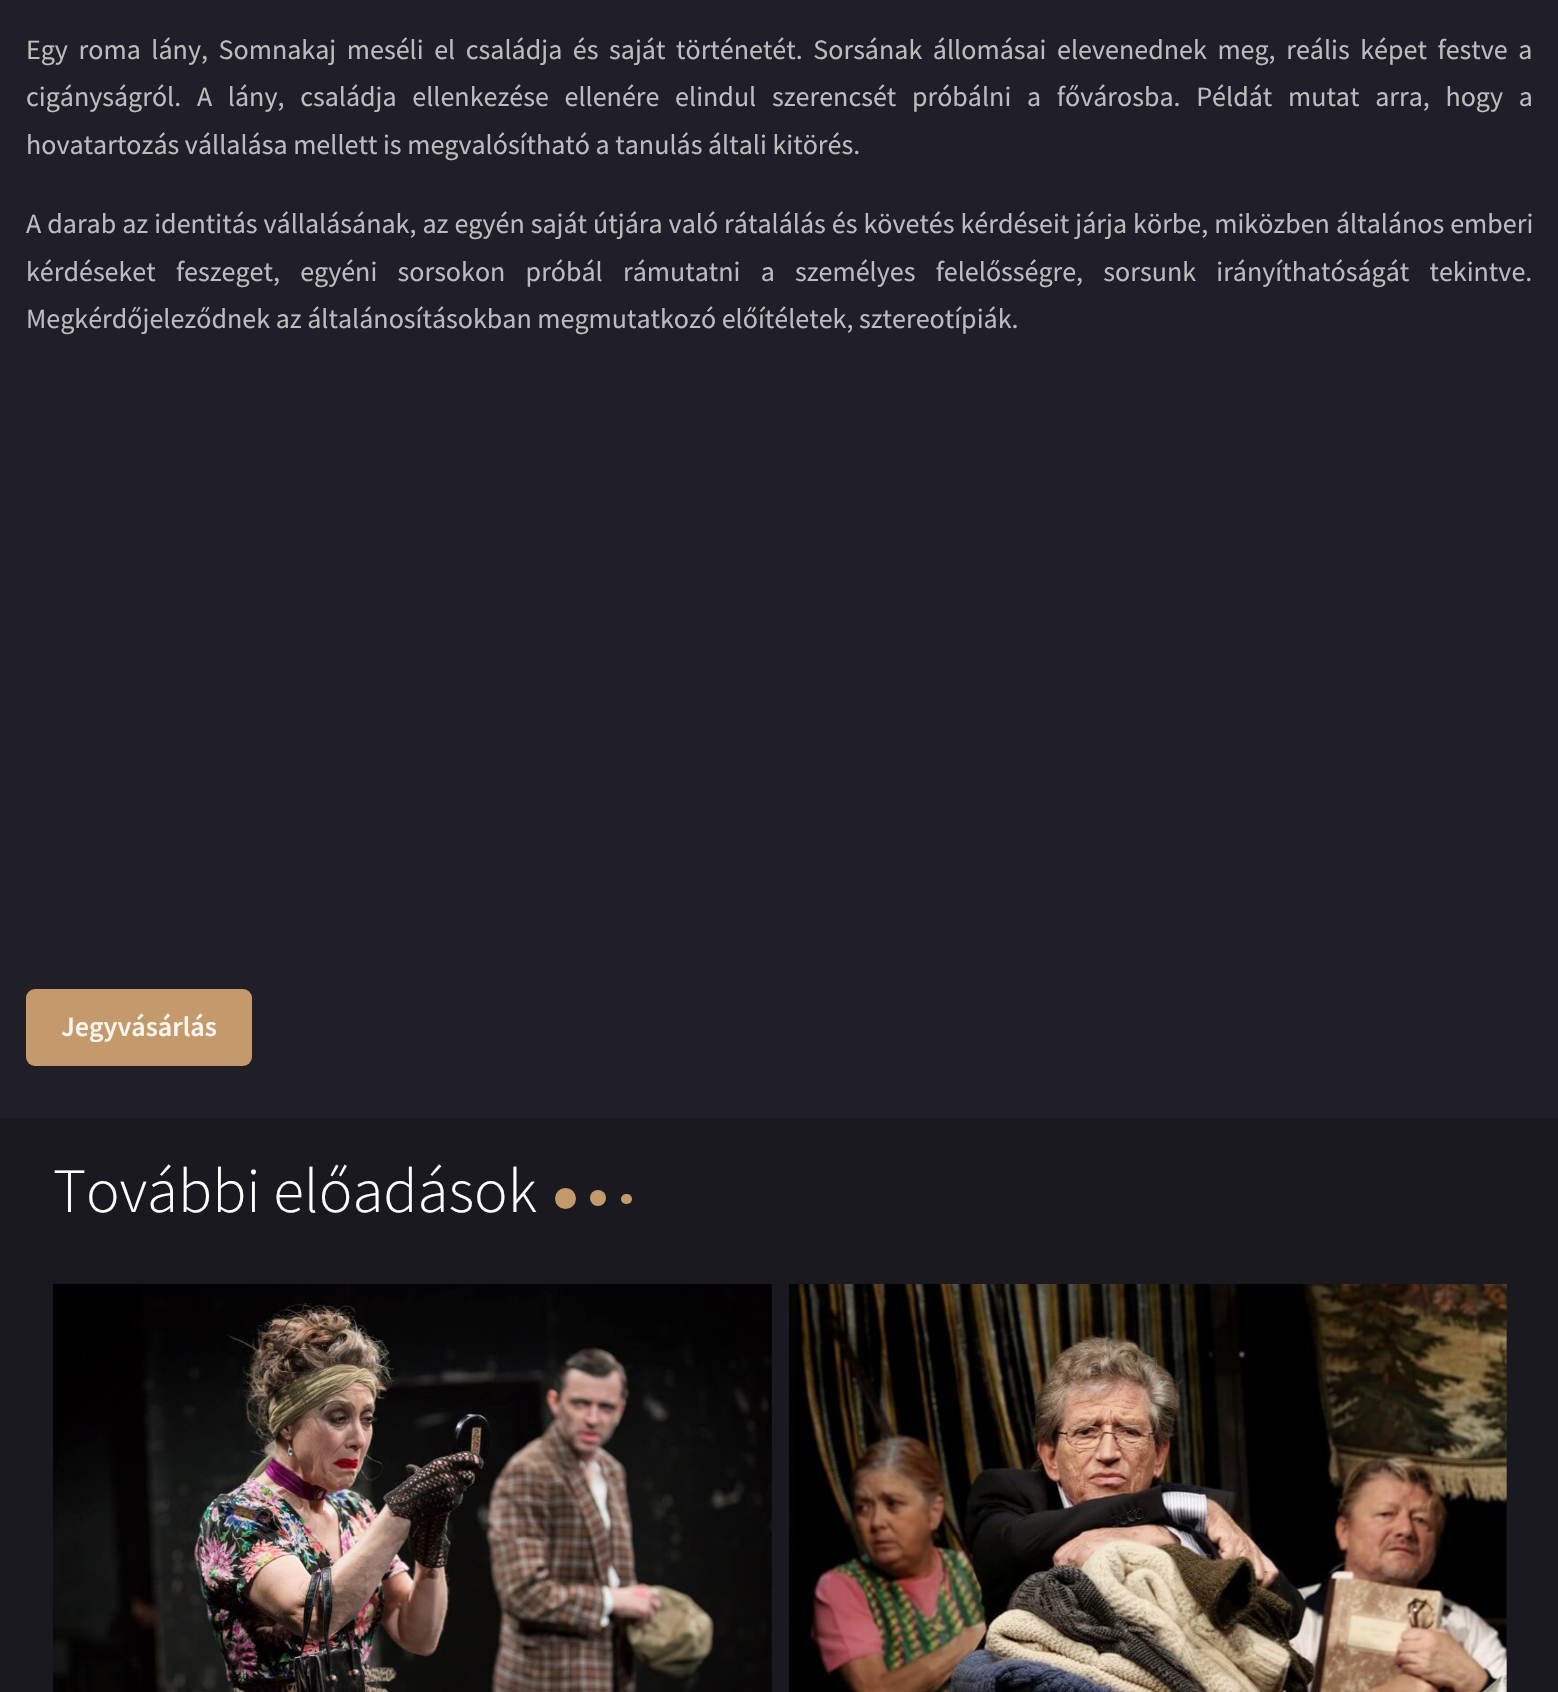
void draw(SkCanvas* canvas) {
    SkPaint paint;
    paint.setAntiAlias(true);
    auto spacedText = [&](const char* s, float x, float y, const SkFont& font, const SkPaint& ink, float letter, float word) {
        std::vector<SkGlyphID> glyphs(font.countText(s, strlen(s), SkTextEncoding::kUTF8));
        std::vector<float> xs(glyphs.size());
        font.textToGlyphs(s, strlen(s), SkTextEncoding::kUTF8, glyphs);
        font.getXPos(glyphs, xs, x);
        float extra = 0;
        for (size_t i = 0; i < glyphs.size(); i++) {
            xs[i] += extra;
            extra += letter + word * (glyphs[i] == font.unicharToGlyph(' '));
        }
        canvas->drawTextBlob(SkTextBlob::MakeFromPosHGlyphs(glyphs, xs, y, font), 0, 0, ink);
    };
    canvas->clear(0xFF1A191F);
    paint.setColor(0xFF201F27);
    canvas->drawRect(SkRect::MakeXYWH(0, 0, 1558, 1118), paint);
    SkFont font1(fontMgr->matchFamilyStyle("Source Sans Pro", SkFontStyle::Normal()), 28);
    font1.setSubpixel(true);
    paint.setColor(0xFFBCBCBE);
    spacedText("Egy roma lány, Somnakaj meséli el családja és saját történetét. Sorsának állomásai elevenednek meg, reális képet festve a", 26, 59, font1, paint, 0, 5);
    spacedText("cigányságról. A lány, családja ellenkezése ellenére elindul szerencsét próbálni a fővárosba. Példát mutat arra, hogy a", 26, 106, font1, paint, 0, 10.1f);
    canvas->drawString("hovatartozás vállalása mellett is megvalósítható a tanulás általi kitörés.", 26, 154, font1, paint);
    spacedText("A darab az identitás vállalásának, az egyén saját útjára való rátalálás és követés kérdéseit járja körbe, miközben általános emberi", 26, 233, font1, paint, 0, 0.4f);
    spacedText("kérdéseket feszeget, egyéni sorsokon próbál rámutatni a személyes felelősségre, sorsunk irányíthatóságát tekintve.", 26, 281, font1, paint, 0, 14.6f);
    canvas->drawString("Megkérdőjeleződnek az általánosításokban megmutatkozó előítéletek, sztereotípiák.", 26, 328, font1, paint);
    paint.setColor(0xFFC49A6C);
    canvas->drawRoundRect(SkRect::MakeXYWH(26, 989, 226, 77), 9, 9, paint);
    SkFont font2(fontMgr->matchFamilyStyle("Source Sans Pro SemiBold", SkFontStyle(600, SkFontStyle::kNormal_Width, SkFontStyle::kUpright_Slant)), 28);
    font2.setSubpixel(true);
    paint.setColor(0xFFF9F5F0);
    canvas->drawString("Jegyvásárlás", 61, 1036, font2, paint);
    SkFont font3(fontMgr->matchFamilyStyle("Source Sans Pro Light", SkFontStyle(300, SkFontStyle::kNormal_Width, SkFontStyle::kUpright_Slant)), 63);
    font3.setSubpixel(true);
    paint.setColor(0xFFFFFFFF);
    canvas->drawString("További előadások", 53, 1212, font3, paint);
    paint.setColor(0xFFC49A6C);
    canvas->drawCircle(565.5f, 1198.5f, 10.5f, paint);
    canvas->drawCircle(598, 1198, 8, paint);
    canvas->drawRoundRect(SkRect::MakeXYWH(621, 1194, 11, 10), 5, 5, paint);
    canvas->drawImageRect(SkImages::DeferredFromEncodedData(SkData::MakeFromFileName("img1.png")), SkRect::MakeXYWH(53, 1284, 719, 408), SkSamplingOptions());
    paint.setColor(0xFF201F27);
    canvas->drawRect(SkRect::MakeXYWH(1506, 1285, 1, 407), paint);
    canvas->drawImageRect(SkImages::DeferredFromEncodedData(SkData::MakeFromFileName("img2.png")), SkRect::MakeXYWH(789, 1284, 718, 408), SkSamplingOptions());
}
